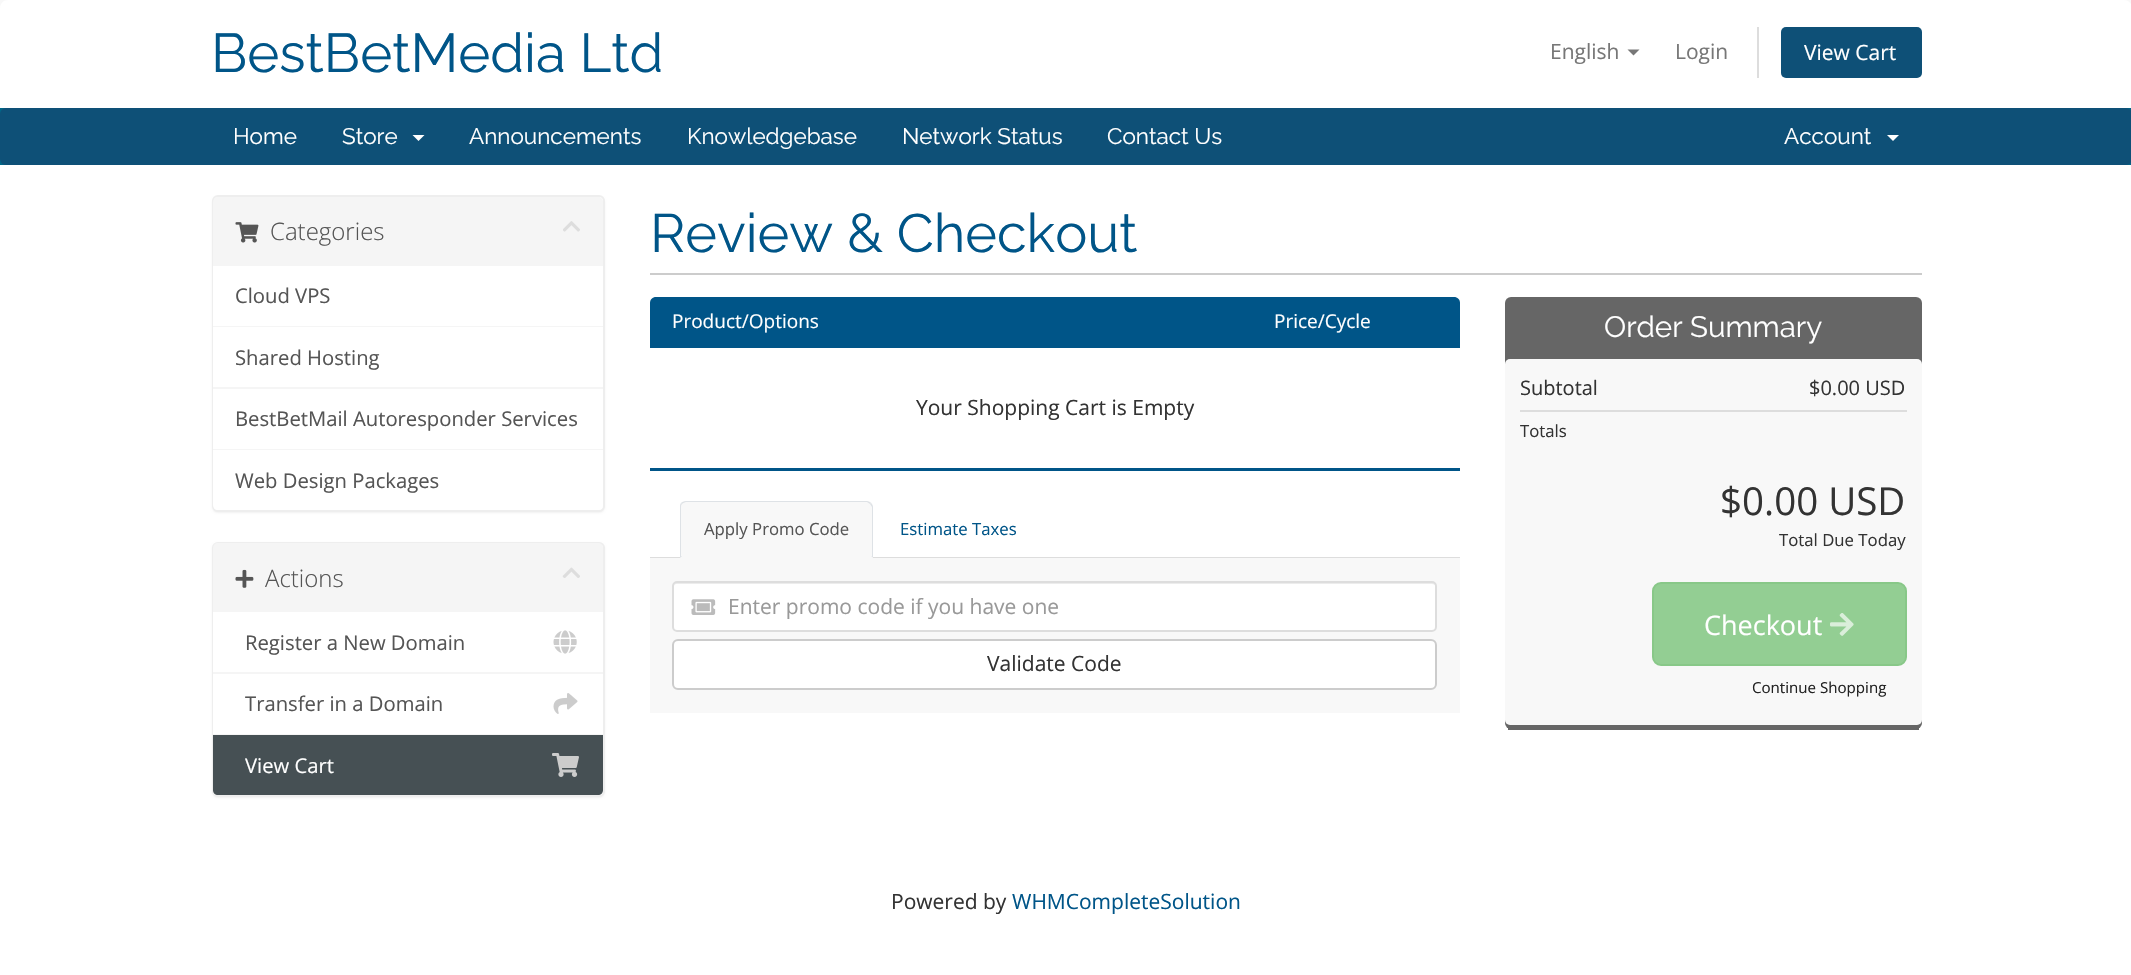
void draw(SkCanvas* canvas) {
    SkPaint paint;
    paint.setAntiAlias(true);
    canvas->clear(0xFFF8F8F8);
    paint.setColor(0xFFFFFFFF);
    canvas->drawPath(SkPathBuilder().moveTo(8, 0).lineTo(2124, 0).cubicTo(2128.5f, 0, 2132, 3.5f, 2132, 8).lineTo(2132, 108).lineTo(0, 108).lineTo(0, 8).cubicTo(0, 3.5f, 3.5f, 0, 8, 0).close().detach(), paint);
    SkFont font1(fontMgr->matchFamilyStyle("Raleway", SkFontStyle::Normal()), 54.5f);
    font1.setSubpixel(true);
    paint.setColor(0xFF005588);
    canvas->drawString("BestBetMedia Ltd", 211, 72, font1, paint);
    SkFont font2(fontMgr->matchFamilyStyle("Open Sans", SkFontStyle::Normal()), 21);
    font2.setSubpixel(true);
    paint.setColor(0xFF777777);
    canvas->drawString("English", 1550, 59, font2, paint);
    canvas->drawPath(SkPathBuilder().moveTo(1627.5f, 49.5f).lineTo(1639.5f, 49.5f).lineTo(1633.5f, 55.5f).close().detach(), paint);
    canvas->drawString("Login", 1675, 59, font2, paint);
    paint.setColor(0xFFDDDDDD);
    canvas->drawRect(SkRect::MakeXYWH(1757, 27, 2, 51), paint);
    paint.setColor(0xFF0E5077);
    canvas->drawRoundRect(SkRect::MakeXYWH(1781, 27, 141, 51), 5, 5, paint);
    paint.setColor(0xFFFFFFFF);
    canvas->drawString("View Cart", 1804, 60, font2, paint);
    paint.setColor(0xFF006687);
    canvas->drawRect(SkRect::MakeXYWH(0, 108, 2131, 57), paint);
    paint.setColor(0xFF0E5077);
    canvas->drawRoundRect(SkRect::MakeXYWH(0, 108, 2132, 57), 6, 6, paint);
    SkFont font3(fontMgr->matchFamilyStyle("Raleway", SkFontStyle::Normal()), 22.5f);
    font3.setSubpixel(true);
    paint.setColor(0xFFFFFFFF);
    canvas->drawString("Home", 233, 144, font3, paint);
    canvas->drawString("Store", 342, 144, font3, paint);
    canvas->drawPath(SkPathBuilder().moveTo(412.5f, 135).lineTo(424.5f, 135).lineTo(418.5f, 141).close().detach(), paint);
    canvas->drawString("Announcements", 469, 144, font3, paint);
    canvas->drawString("Knowledgebase", 687, 144, font3, paint);
    canvas->drawString("Network Status", 902, 144, font3, paint);
    canvas->drawString("Contact Us", 1107, 144, font3, paint);
    canvas->drawString("Account", 1784, 144, font3, paint);
    canvas->drawPath(SkPathBuilder().moveTo(1887, 135).lineTo(1899, 135).lineTo(1893, 141).close().detach(), paint);
    canvas->drawRect(SkRect::MakeXYWH(0, 165, 2131, 810), paint);
    paint.setColor(0x0D000000);
    paint.setMaskFilter(SkMaskFilter::MakeBlur(kNormal_SkBlurStyle, 1));
    canvas->drawRoundRect(SkRect::MakeXYWH(212, 197, 393, 316), 6, 6, paint);
    paint.setMaskFilter(nullptr);
    paint.setColor(0xFFFFFFFF);
    canvas->drawRoundRect(SkRect::MakeXYWH(213, 196, 391, 315), 5, 5, paint);
    paint.setStyle(SkPaint::kStroke_Style);
    paint.setStrokeWidth(2);
    paint.setColor(0xFFEEEEEE);
    canvas->drawRoundRect(SkRect::MakeXYWH(213, 196, 391, 315), 5, 5, paint);
    paint.setStyle(SkPaint::kFill_Style);
    paint.setColor(0xFFF5F5F5);
    canvas->drawPath(SkPathBuilder().moveTo(218, 197).lineTo(598, 197).cubicTo(601, 197, 603, 199, 603, 202).lineTo(603, 266).lineTo(213, 266).lineTo(213, 202).cubicTo(213, 199, 215, 197, 218, 197).close().detach(), paint);
    canvas->drawImageRect(SkImages::DeferredFromEncodedData(SkData::MakeFromFileName("img1.png")), SkRect::MakeXYWH(235, 222, 24, 21), SkSamplingOptions());
    SkFont font4(fontMgr->matchFamilyStyle("Open Sans", SkFontStyle(300, SkFontStyle::kNormal_Width, SkFontStyle::kUpright_Slant)), 24);
    font4.setSubpixel(true);
    paint.setColor(0xFF555555);
    canvas->drawString("Categories", 270, 240, font4, paint);
    canvas->drawImageRect(SkImages::DeferredFromEncodedData(SkData::MakeFromFileName("img2.png")), SkRect::MakeXYWH(563, 221, 17, 11), SkSamplingOptions());
    paint.setColor(0xFFFFFFFF);
    canvas->drawRect(SkRect::MakeXYWH(213, 266, 1, 60), paint);
    paint.setColor(0xFFF5F5F5);
    canvas->drawRect(SkRect::MakeXYWH(213, 326, 390, 1), paint);
    SkFont font5(fontMgr->matchFamilyStyle("Open Sans", SkFontStyle::Normal()), 20.25f);
    font5.setSubpixel(true);
    paint.setColor(0xFF555555);
    canvas->drawString("Cloud VPS", 235, 303, font5, paint);
    paint.setColor(0xFFFFFFFF);
    canvas->drawRect(SkRect::MakeXYWH(213, 327, 1, 60), paint);
    paint.setColor(0xFFF5F5F5);
    canvas->drawRect(SkRect::MakeXYWH(213, 387, 390, 2), paint);
    paint.setColor(0xFF555555);
    canvas->drawString("Shared Hosting", 235, 365, font5, paint);
    paint.setColor(0xFFFFFFFF);
    canvas->drawRect(SkRect::MakeXYWH(213, 389, 1, 60), paint);
    paint.setColor(0xFFF5F5F5);
    canvas->drawRect(SkRect::MakeXYWH(213, 449, 390, 1), paint);
    paint.setColor(0xFF555555);
    canvas->drawString("BestBetMail Autoresponder Services", 235, 426, font5, paint);
    paint.setColor(0xFFFFFFFF);
    canvas->drawPath(SkPathBuilder().moveTo(213, 450).lineTo(603, 450).lineTo(603, 505).cubicTo(603, 508, 601, 510, 598, 510).lineTo(218, 510).cubicTo(215, 510, 213, 508, 213, 505).close().detach(), paint);
    paint.setColor(0xFF555555);
    canvas->drawString("Web Design Packages", 235, 488, font5, paint);
    paint.setColor(0x0D000000);
    paint.setMaskFilter(SkMaskFilter::MakeBlur(kNormal_SkBlurStyle, 1));
    canvas->drawRoundRect(SkRect::MakeXYWH(212, 543, 393, 255), 6, 6, paint);
    paint.setMaskFilter(nullptr);
    paint.setColor(0xFFFFFFFF);
    canvas->drawRoundRect(SkRect::MakeXYWH(213, 543, 391, 253), 5, 5, paint);
    paint.setStyle(SkPaint::kStroke_Style);
    paint.setColor(0xFFEEEEEE);
    canvas->drawRoundRect(SkRect::MakeXYWH(213, 543, 391, 253), 5, 5, paint);
    paint.setStyle(SkPaint::kFill_Style);
    paint.setColor(0xFFF5F5F5);
    canvas->drawPath(SkPathBuilder().moveTo(218, 543).lineTo(598, 543).cubicTo(601, 543, 603, 545, 603, 548).lineTo(603, 612).lineTo(213, 612).lineTo(213, 548).cubicTo(213, 545, 215, 543, 218, 543).close().detach(), paint);
    canvas->drawImageRect(SkImages::DeferredFromEncodedData(SkData::MakeFromFileName("img3.png")), SkRect::MakeXYWH(235, 569, 19, 19), SkSamplingOptions());
    paint.setColor(0xFF555555);
    canvas->drawString("Actions", 265, 587, font4, paint);
    canvas->drawImageRect(SkImages::DeferredFromEncodedData(SkData::MakeFromFileName("img4.png")), SkRect::MakeXYWH(562, 567, 18, 11), SkSamplingOptions());
    paint.setColor(0xFFFFFFFF);
    canvas->drawRect(SkRect::MakeXYWH(213, 612, 1, 60), paint);
    paint.setColor(0xFFF5F5F5);
    canvas->drawRect(SkRect::MakeXYWH(213, 672, 390, 2), paint);
    paint.setColor(0xFF555555);
    canvas->drawString("Register a New Domain", 245, 650, font5, paint);
    canvas->drawImageRect(SkImages::DeferredFromEncodedData(SkData::MakeFromFileName("img5.png")), SkRect::MakeXYWH(553, 630, 24, 24), SkSamplingOptions());
    paint.setColor(0xFFFFFFFF);
    canvas->drawRect(SkRect::MakeXYWH(213, 674, 1, 60), paint);
    paint.setColor(0xFFF5F5F5);
    canvas->drawRect(SkRect::MakeXYWH(213, 734, 390, 1), paint);
    paint.setColor(0xFF555555);
    canvas->drawString("Transfer in a Domain", 245, 711, font5, paint);
    canvas->drawImageRect(SkImages::DeferredFromEncodedData(SkData::MakeFromFileName("img6.png")), SkRect::MakeXYWH(553, 693, 25, 21), SkSamplingOptions());
    paint.setColor(0xFF465054);
    canvas->drawPath(SkPathBuilder().moveTo(213, 735).lineTo(603, 735).lineTo(603, 790).cubicTo(603, 793, 601, 795, 598, 795).lineTo(218, 795).cubicTo(215, 795, 213, 793, 213, 790).close().detach(), paint);
    paint.setColor(0xFFFFFFFF);
    canvas->drawString("View Cart", 245, 773, font5, paint);
    canvas->drawImageRect(SkImages::DeferredFromEncodedData(SkData::MakeFromFileName("img7.png")), SkRect::MakeXYWH(552, 753, 27, 24), SkSamplingOptions());
    paint.setColor(0xFFCCCCCC);
    canvas->drawRect(SkRect::MakeXYWH(650, 273, 1272, 2), paint);
    SkFont font6(fontMgr->matchFamilyStyle("Raleway", SkFontStyle::Normal()), 54);
    font6.setSubpixel(true);
    paint.setColor(0xFF005588);
    canvas->drawString("Review & Checkout", 650, 252, font6, paint);
    canvas->drawPath(SkPathBuilder().moveTo(656, 297).lineTo(1454, 297).cubicTo(1457.5f, 297, 1460, 299.5f, 1460, 303).lineTo(1460, 348).lineTo(650, 348).lineTo(650, 303).cubicTo(650, 299.5f, 652.5f, 297, 656, 297).close().detach(), paint);
    SkFont font7(fontMgr->matchFamilyStyle("Open Sans", SkFontStyle::Normal()), 19);
    font7.setSubpixel(true);
    paint.setColor(0xFFFFFFFF);
    canvas->drawString("Product/Options", 672, 328, font7, paint);
    canvas->drawString("Price/Cycle", 1274, 328, font7, paint);
    paint.setColor(0xFF005588);
    canvas->drawRect(SkRect::MakeXYWH(650, 468, 810, 3), paint);
    paint.setColor(0xFF333333);
    canvas->drawString("Your Shopping Cart is Empty", 916, 415, font2, paint);
    paint.setColor(0xFFDDDDDD);
    canvas->drawRect(SkRect::MakeXYWH(650, 557, 810, 1), paint);
    paint.setColor(0xFFF8F8F8);
    canvas->drawPath(SkPathBuilder().moveTo(686, 501).lineTo(867, 501).cubicTo(870.5f, 501, 873, 503.5f, 873, 507).lineTo(873, 558).lineTo(680, 558).lineTo(680, 507).cubicTo(680, 503.5f, 682.5f, 501, 686, 501).close().detach(), paint);
    paint.setColor(0xFFDEE2E6);
    canvas->drawPath(SkPathBuilder().moveTo(686, 501).cubicTo(684, 501, 682, 502, 681, 503).lineTo(682, 504).cubicTo(683, 503, 685, 502, 686, 502).lineTo(867, 502).lineTo(870, 504).lineTo(871, 503).cubicTo(870, 502, 868, 501, 867, 501).close().detach(), paint);
    canvas->drawPath(SkPathBuilder().moveTo(873, 558).lineTo(873, 507).cubicTo(873, 506, 872, 504, 871, 503).lineTo(870, 504).lineTo(872, 507).lineTo(872, 556).lineTo(871, 556).close().detach(), paint);
    paint.setColor(0xFFF8F8F8);
    canvas->drawPath(SkPathBuilder().moveTo(873, 558).lineTo(871, 556).lineTo(682, 556).lineTo(680, 558).close().detach(), paint);
    paint.setColor(0xFFDEE2E6);
    canvas->drawPath(SkPathBuilder().moveTo(681, 503).cubicTo(680, 504, 680, 506, 680, 507).lineTo(680, 558).lineTo(682, 556).lineTo(681, 556).lineTo(681, 507).cubicTo(681, 506, 681, 505, 682, 504).close().detach(), paint);
    SkFont font8(fontMgr->matchFamilyStyle("Open Sans", SkFontStyle::Normal()), 16.75f);
    font8.setSubpixel(true);
    paint.setColor(0xFF555555);
    canvas->drawString("Apply Promo Code", 704, 535, font8, paint);
    paint.setColor(0xFF005588);
    canvas->drawString("Estimate Taxes", 900, 535, font8, paint);
    paint.setColor(0xFFF8F8F8);
    canvas->drawRect(SkRect::MakeXYWH(650, 558, 810, 155), paint);
    paint.setColor(0xFFFFFFFF);
    canvas->drawRoundRect(SkRect::MakeXYWH(672, 581, 765, 51), 5, 5, paint);
    paint.setColor(0xFFECECEC);
    canvas->drawPath(SkPathBuilder().moveTo(676, 584).lineTo(1432, 584).cubicTo(1434, 584, 1436, 585, 1436, 586).cubicTo(1436, 584, 1435, 582, 1433, 582).lineTo(677, 582).cubicTo(675, 582, 674, 584, 674, 586).cubicTo(674, 585, 675, 584, 676, 584).close().detach(), paint);
    paint.setStyle(SkPaint::kStroke_Style);
    paint.setColor(0xFFDDDDDD);
    canvas->drawRoundRect(SkRect::MakeXYWH(673, 582, 763, 49), 4, 4, paint);
    canvas->drawImageRect(SkImages::DeferredFromEncodedData(SkData::MakeFromFileName("img8.png")), SkRect::MakeXYWH(691, 599, 25, 16), SkSamplingOptions());
    paint.setStyle(SkPaint::kFill_Style);
    paint.setColor(0xFF999999);
    canvas->drawString("Enter promo code if you have one", 728, 614, font2, paint);
    paint.setColor(0xFFFFFFFF);
    canvas->drawRoundRect(SkRect::MakeXYWH(673, 640, 763, 49), 5, 5, paint);
    paint.setStyle(SkPaint::kStroke_Style);
    paint.setColor(0xFFCCCCCC);
    canvas->drawRoundRect(SkRect::MakeXYWH(673, 640, 763, 49), 5, 5, paint);
    paint.setStyle(SkPaint::kFill_Style);
    paint.setColor(0xFF333333);
    canvas->drawString("Validate Code", 987, 671, font2, paint);
    paint.setColor(0xFF666666);
    canvas->drawRoundRect(SkRect::MakeXYWH(1505, 297, 417, 432), 6, 6, paint);
    canvas->drawRect(SkRect::MakeXYWH(1508, 728, 411, 2), paint);
    SkFont font9(fontMgr->matchFamilyStyle("Raleway", SkFontStyle::Normal()), 29.5f);
    font9.setSubpixel(true);
    paint.setColor(0xFFFFFFFF);
    canvas->drawString("Order Summary", 1604, 337, font9, paint);
    paint.setColor(0xFFF8F8F8);
    canvas->drawRoundRect(SkRect::MakeXYWH(1505, 359, 417, 366), 5, 5, paint);
    paint.setColor(0xFFDDDDDD);
    canvas->drawRect(SkRect::MakeXYWH(1520, 410, 387, 2), paint);
    SkFont font10(fontMgr->matchFamilyStyle("Open Sans", SkFontStyle::Normal()), 20);
    font10.setSubpixel(true);
    paint.setColor(0xFF333333);
    canvas->drawString("Subtotal", 1520, 395, font10, paint);
    canvas->drawString("$0.00 USD", 1809, 395, font10, paint);
    canvas->drawString("Totals", 1520, 437, font8, paint);
    SkFont font11(fontMgr->matchFamilyStyle("Open Sans", SkFontStyle::Normal()), 38.5f);
    font11.setSubpixel(true);
    canvas->drawString("$0.00 USD", 1720, 515, font11, paint);
    canvas->drawString("Total Due Today", 1779, 546, font8, paint);
    paint.setColor(0xFF93CE93);
    canvas->drawRoundRect(SkRect::MakeXYWH(1653, 583, 253, 82), 8, 8, paint);
    paint.setStyle(SkPaint::kStroke_Style);
    paint.setColor(0xFF88C888);
    canvas->drawRoundRect(SkRect::MakeXYWH(1653, 583, 253, 82), 8, 8, paint);
    SkFont font12(fontMgr->matchFamilyStyle("Open Sans", SkFontStyle::Normal()), 27);
    font12.setSubpixel(true);
    paint.setStyle(SkPaint::kFill_Style);
    paint.setColor(0xFFFFFFFF);
    canvas->drawString("Checkout", 1704, 635, font12, paint);
    canvas->drawImageRect(SkImages::DeferredFromEncodedData(SkData::MakeFromFileName("img9.png")), SkRect::MakeXYWH(1830, 613, 24, 23), SkSamplingOptions());
    SkFont font13(fontMgr->matchFamilyStyle("Open Sans", SkFontStyle::Normal()), 15.1f);
    font13.setSubpixel(true);
    paint.setColor(0xFF222222);
    canvas->drawString("Continue Shopping", 1752, 693, font13, paint);
    paint.setColor(0xFF333333);
    canvas->drawString("Powered by", 891, 909, font2, paint);
    paint.setColor(0xFF005588);
    canvas->drawString("WHMCompleteSolution", 1012, 909, font2, paint);
}
